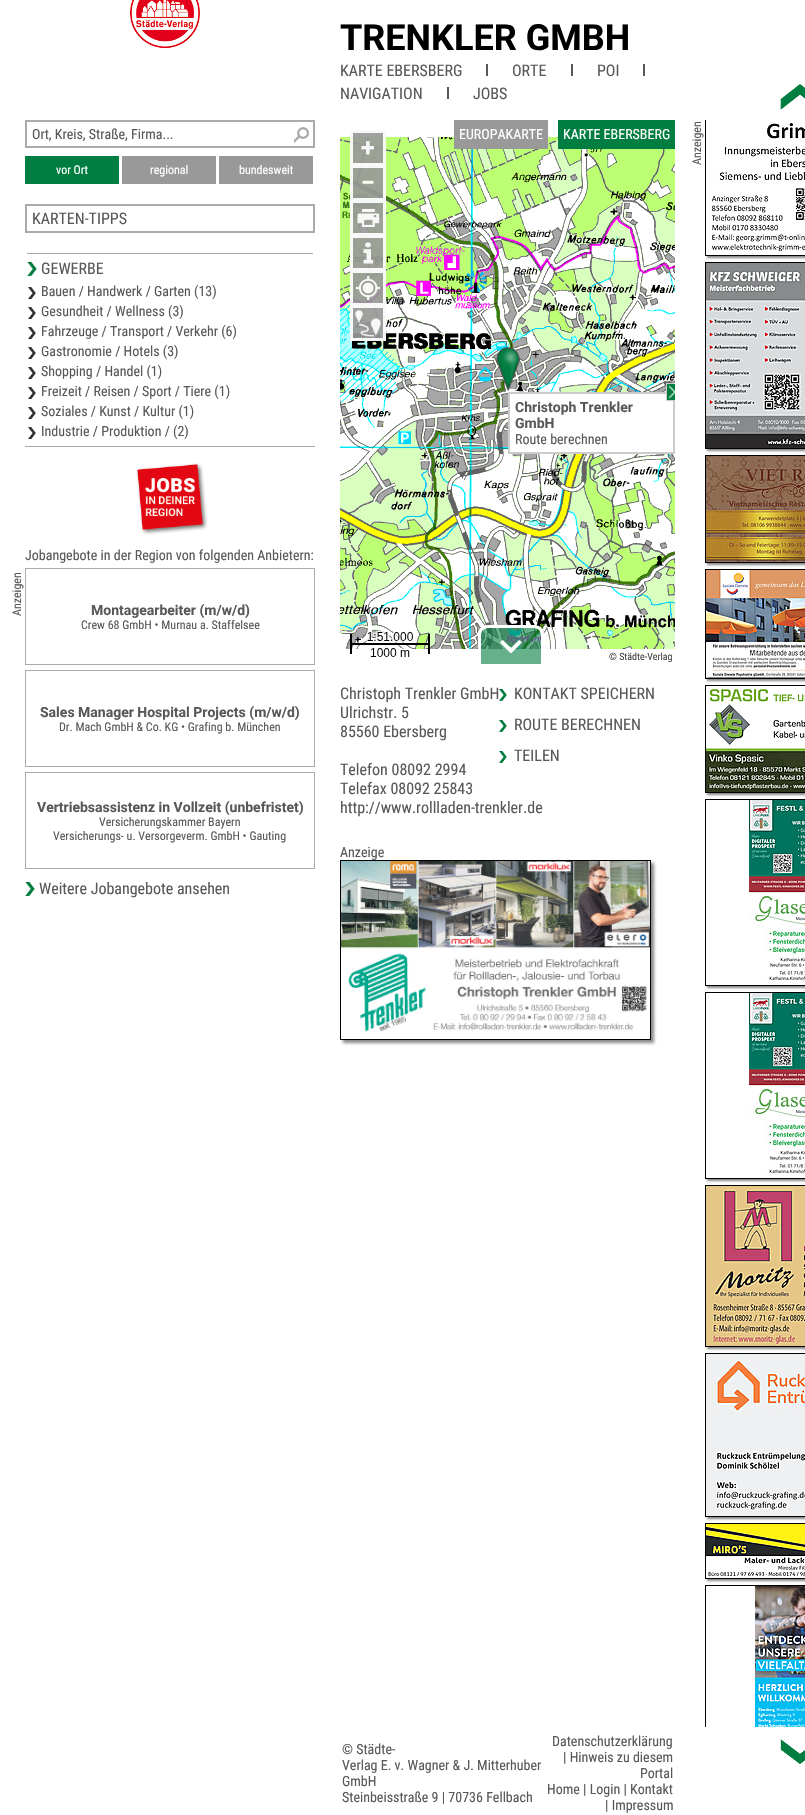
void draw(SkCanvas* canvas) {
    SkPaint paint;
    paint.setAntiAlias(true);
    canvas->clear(0xFFFFFFFF);
    canvas->drawImageRect(SkImages::DeferredFromEncodedData(SkData::MakeFromFileName("img1.png")), SkRect::MakeXYWH(130, 0, 70, 48), SkSamplingOptions());
    SkFont font1(fontMgr->matchFamilyStyle("Roboto", SkFontStyle::Bold()), 36);
    font1.setSubpixel(true);
    paint.setColor(0xFF000000);
    canvas->drawString("TRENKLER GMBH", 340, 50, font1, paint);
    SkFont font2(fontMgr->matchFamilyStyle("Roboto Condensed", SkFontStyle::Normal()), 16);
    font2.setSubpixel(true);
    paint.setColor(0xFF58585A);
    canvas->drawString("KARTE EBERSBERG", 340, 76, font2, paint);
    canvas->drawRect(SkRect::MakeXYWH(486, 64, 2, 12), paint);
    canvas->drawString("ORTE", 512, 76, font2, paint);
    canvas->drawRect(SkRect::MakeXYWH(571, 64, 2, 12), paint);
    canvas->drawString("POI", 597, 76, font2, paint);
    canvas->drawRect(SkRect::MakeXYWH(643, 64, 2, 12), paint);
    canvas->drawString("NAVIGATION", 340, 99, font2, paint);
    canvas->drawRect(SkRect::MakeXYWH(447, 87, 2, 12), paint);
    canvas->drawString("JOBS", 473, 99, font2, paint);
    canvas->drawImageRect(SkImages::DeferredFromEncodedData(SkData::MakeFromFileName("img2.png")), SkRect::MakeXYWH(294, 127, 15, 16), SkSamplingOptions());
    paint.setStyle(SkPaint::kStroke_Style);
    paint.setStrokeWidth(2);
    paint.setColor(0xFFAAAAAA);
    canvas->drawRect(SkRect::MakeXYWH(26, 121, 288, 26), paint);
    SkFont font3(fontMgr->matchFamilyStyle("Roboto Condensed", SkFontStyle::Normal()), 14);
    font3.setSubpixel(true);
    paint.setStyle(SkPaint::kFill_Style);
    paint.setColor(0xFF58585A);
    canvas->drawString("Ort, Kreis, Straße, Firma...", 32, 139, font3, paint);
    paint.setColor(0xFF007D40);
    canvas->drawRect(SkRect::MakeXYWH(25, 156, 94, 28), paint);
    SkFont font4(fontMgr->matchFamilyStyle("Roboto Condensed", SkFontStyle::Normal()), 12);
    font4.setSubpixel(true);
    paint.setColor(0xFFFFFFFF);
    canvas->drawString("vor Ort", 56, 174, font4, paint);
    paint.setColor(0xFF999999);
    canvas->drawRect(SkRect::MakeXYWH(122, 156, 94, 28), paint);
    paint.setColor(0xFFFFFFFF);
    canvas->drawString("regional", 150, 174, font4, paint);
    paint.setColor(0xFF999999);
    canvas->drawRect(SkRect::MakeXYWH(219, 156, 94, 28), paint);
    paint.setColor(0xFFFFFFFF);
    canvas->drawString("bundesweit", 239, 174, font4, paint);
    paint.setStyle(SkPaint::kStroke_Style);
    paint.setColor(0xFFAAAAAA);
    canvas->drawRect(SkRect::MakeXYWH(26, 205, 288, 27), paint);
    paint.setStyle(SkPaint::kFill_Style);
    paint.setColor(0xFF58585A);
    canvas->drawString("KARTEN-TIPPS", 32, 224, font2, paint);
    canvas->drawImageRect(SkImages::DeferredFromEncodedData(SkData::MakeFromFileName("img3.png")), SkRect::MakeXYWH(27, 262, 10, 14), SkSamplingOptions());
    paint.setColor(0xFFAAAAAA);
    canvas->drawRect(SkRect::MakeXYWH(27, 253, 286, 1), paint);
    paint.setColor(0xFF58585A);
    canvas->drawString("GEWERBE", 41, 274, font2, paint);
    canvas->drawImageRect(SkImages::DeferredFromEncodedData(SkData::MakeFromFileName("img4.png")), SkRect::MakeXYWH(28, 287, 8, 12), SkSamplingOptions());
    canvas->drawString("Bauen / Handwerk / Garten (13)", 41, 296, font3, paint);
    canvas->drawImageRect(SkImages::DeferredFromEncodedData(SkData::MakeFromFileName("img4.png")), SkRect::MakeXYWH(28, 307, 8, 12), SkSamplingOptions());
    canvas->drawString("Gesundheit / Wellness (3)", 41, 316, font3, paint);
    canvas->drawImageRect(SkImages::DeferredFromEncodedData(SkData::MakeFromFileName("img4.png")), SkRect::MakeXYWH(28, 327, 8, 12), SkSamplingOptions());
    canvas->drawString("Fahrzeuge / Transport / Verkehr (6)", 41, 336, font3, paint);
    canvas->drawImageRect(SkImages::DeferredFromEncodedData(SkData::MakeFromFileName("img4.png")), SkRect::MakeXYWH(28, 347, 8, 12), SkSamplingOptions());
    canvas->drawString("Gastronomie / Hotels (3)", 41, 356, font3, paint);
    canvas->drawImageRect(SkImages::DeferredFromEncodedData(SkData::MakeFromFileName("img4.png")), SkRect::MakeXYWH(28, 367, 8, 12), SkSamplingOptions());
    canvas->drawString("Shopping / Handel (1)", 41, 376, font3, paint);
    canvas->drawImageRect(SkImages::DeferredFromEncodedData(SkData::MakeFromFileName("img4.png")), SkRect::MakeXYWH(28, 387, 8, 12), SkSamplingOptions());
    canvas->drawString("Freizeit / Reisen / Sport / Tiere (1)", 41, 396, font3, paint);
    canvas->drawImageRect(SkImages::DeferredFromEncodedData(SkData::MakeFromFileName("img4.png")), SkRect::MakeXYWH(28, 407, 8, 12), SkSamplingOptions());
    canvas->drawString("Soziales / Kunst / Kultur (1)", 41, 416, font3, paint);
    canvas->drawImageRect(SkImages::DeferredFromEncodedData(SkData::MakeFromFileName("img4.png")), SkRect::MakeXYWH(28, 427, 8, 12), SkSamplingOptions());
    canvas->drawString("Industrie / Produktion / (2)", 41, 436, font3, paint);
    canvas->drawString("Jobangebote in der Region von folgenden Anbietern:", 25, 560, font3, paint);
    canvas->drawImageRect(SkImages::DeferredFromEncodedData(SkData::MakeFromFileName("img5.png")), SkRect::MakeXYWH(136, 463, 72, 72), SkSamplingOptions());
    paint.setColor(0xFFAAAAAA);
    canvas->drawRect(SkRect::MakeXYWH(25, 446, 290, 1), paint);
    paint.setColor(0xFF58585A);
    canvas->save();
    canvas->rotate(-90, 21, 616);
    canvas->drawString("Anzeigen", 21, 616, font4, paint);
    canvas->restore();
    paint.setStyle(SkPaint::kStroke_Style);
    paint.setStrokeWidth(1);
    paint.setColor(0xFFAAAAAA);
    canvas->drawRect(SkRect::MakeXYWH(25.5f, 568.5f, 289, 96), paint);
    SkFont font5(fontMgr->matchFamilyStyle("Roboto", SkFontStyle::Bold()), 14);
    font5.setSubpixel(true);
    paint.setStyle(SkPaint::kFill_Style);
    paint.setColor(0xFF58585A);
    canvas->drawString("Montagearbeiter (m/w/d)", 91, 615, font5, paint);
    canvas->drawString("Crew 68 GmbH • Murnau a. Staffelsee", 81, 629, font4, paint);
    paint.setStyle(SkPaint::kStroke_Style);
    paint.setColor(0xFFAAAAAA);
    canvas->drawRect(SkRect::MakeXYWH(25.5f, 670.5f, 289, 96), paint);
    paint.setStyle(SkPaint::kFill_Style);
    paint.setColor(0xFF58585A);
    canvas->drawString("Sales Manager Hospital Projects (m/w/d)", 40, 717, font5, paint);
    canvas->drawString("Dr. Mach GmbH & Co. KG • Grafing b. München", 59, 731, font4, paint);
    paint.setStyle(SkPaint::kStroke_Style);
    paint.setColor(0xFFAAAAAA);
    canvas->drawRect(SkRect::MakeXYWH(25.5f, 772.5f, 289, 96), paint);
    paint.setStyle(SkPaint::kFill_Style);
    paint.setColor(0xFF58585A);
    canvas->drawString("Vertriebsassistenz in Vollzeit (unbefristet)", 37, 812, font5, paint);
    canvas->drawString("Versicherungskammer Bayern", 99, 826, font4, paint);
    canvas->drawString("Versicherungs- u. Versorgeverm. GmbH • Gauting", 53, 840, font4, paint);
    canvas->drawImageRect(SkImages::DeferredFromEncodedData(SkData::MakeFromFileName("img3.png")), SkRect::MakeXYWH(25, 882, 10, 14), SkSamplingOptions());
    canvas->drawString("Weitere Jobangebote ansehen", 39, 894, font2, paint);
    canvas->drawImageRect(SkImages::DeferredFromEncodedData(SkData::MakeFromFileName("img7.png")), SkRect::MakeXYWH(427, 137, 248, 256), SkSamplingOptions());
    paint.setColor(0xFF999999);
    canvas->drawRect(SkRect::MakeXYWH(454, 120, 94, 29), paint);
    paint.setColor(0xFFFFFFFF);
    canvas->drawString("EUROPAKARTE", 459, 139, font3, paint);
    paint.setColor(0xFF007D40);
    canvas->drawRect(SkRect::MakeXYWH(558, 120, 117, 29), paint);
    paint.setColor(0xFFFFFFFF);
    canvas->drawString("KARTE EBERSBERG", 563, 139, font3, paint);
    canvas->drawImageRect(SkImages::DeferredFromEncodedData(SkData::MakeFromFileName("img6.png")), SkRect::MakeXYWH(340, 137, 87, 256), SkSamplingOptions());
    canvas->drawImageRect(SkImages::DeferredFromEncodedData(SkData::MakeFromFileName("img8.png")), SkRect::MakeXYWH(340, 393, 87, 256), SkSamplingOptions());
    canvas->drawImageRect(SkImages::DeferredFromEncodedData(SkData::MakeFromFileName("img9.png")), SkRect::MakeXYWH(427, 393, 248, 256), SkSamplingOptions());
    paint.setColor(0xEB999999);
    canvas->drawRect(SkRect::MakeXYWH(350, 130, 36, 36), paint);
    paint.setStyle(SkPaint::kStroke_Style);
    paint.setStrokeWidth(3);
    paint.setColor(0xEBFFFFFF);
    canvas->drawRect(SkRect::MakeXYWH(351.5f, 131.5f, 33, 33), paint);
    SkFont font6(fontMgr->matchFamilyStyle("Roboto", SkFontStyle::Bold()), 25);
    font6.setSubpixel(true);
    paint.setStyle(SkPaint::kFill_Style);
    paint.setColor(0xFFF7F7F7);
    canvas->drawString("+", 361, 156, font6, paint);
    paint.setColor(0xEB999999);
    canvas->drawRect(SkRect::MakeXYWH(350, 165, 36, 36), paint);
    paint.setStyle(SkPaint::kStroke_Style);
    paint.setColor(0xEBFFFFFF);
    canvas->drawRect(SkRect::MakeXYWH(351.5f, 166.5f, 33, 33), paint);
    paint.setStyle(SkPaint::kFill_Style);
    paint.setColor(0xFFFAFFF4);
    canvas->drawString("−", 361, 191, font6, paint);
    paint.setColor(0xEB999999);
    canvas->drawRect(SkRect::MakeXYWH(350, 200, 36, 36), paint);
    paint.setStyle(SkPaint::kStroke_Style);
    paint.setColor(0xEBFFFFFF);
    canvas->drawRect(SkRect::MakeXYWH(351.5f, 201.5f, 33, 33), paint);
    canvas->drawImageRect(SkImages::DeferredFromEncodedData(SkData::MakeFromFileName("img10.png")), SkRect::MakeXYWH(357, 209, 23, 18), SkSamplingOptions());
    paint.setStyle(SkPaint::kFill_Style);
    paint.setColor(0xEB999999);
    canvas->drawRect(SkRect::MakeXYWH(350, 235, 36, 36), paint);
    paint.setStyle(SkPaint::kStroke_Style);
    paint.setColor(0xEBFFFFFF);
    canvas->drawRect(SkRect::MakeXYWH(351.5f, 236.5f, 33, 33), paint);
    canvas->drawImageRect(SkImages::DeferredFromEncodedData(SkData::MakeFromFileName("img11.png")), SkRect::MakeXYWH(363, 242, 11, 22), SkSamplingOptions());
    paint.setStyle(SkPaint::kFill_Style);
    paint.setColor(0xEB999999);
    canvas->drawRect(SkRect::MakeXYWH(350, 270, 36, 36), paint);
    paint.setStyle(SkPaint::kStroke_Style);
    paint.setColor(0xEBFFFFFF);
    canvas->drawRect(SkRect::MakeXYWH(351.5f, 271.5f, 33, 33), paint);
    canvas->drawImageRect(SkImages::DeferredFromEncodedData(SkData::MakeFromFileName("img12.png")), SkRect::MakeXYWH(356, 276, 24, 24), SkSamplingOptions());
    paint.setStyle(SkPaint::kFill_Style);
    paint.setColor(0xEB999999);
    canvas->drawRect(SkRect::MakeXYWH(350, 305, 36, 36), paint);
    paint.setStyle(SkPaint::kStroke_Style);
    paint.setColor(0xEBFFFFFF);
    canvas->drawRect(SkRect::MakeXYWH(351.5f, 306.5f, 33, 33), paint);
    canvas->drawImageRect(SkImages::DeferredFromEncodedData(SkData::MakeFromFileName("img13.png")), SkRect::MakeXYWH(355, 310, 26, 27), SkSamplingOptions());
    canvas->drawImageRect(SkImages::DeferredFromEncodedData(SkData::MakeFromFileName("img14.png")), SkRect::MakeXYWH(496, 347, 24, 44), SkSamplingOptions());
    paint.setStyle(SkPaint::kFill_Style);
    paint.setColor(0xFFFFFFFF);
    canvas->drawRect(SkRect::MakeXYWH(509, 393, 165, 60), paint);
    paint.setStyle(SkPaint::kStroke_Style);
    paint.setStrokeWidth(2);
    paint.setColor(0xFFCCCCCC);
    canvas->drawRect(SkRect::MakeXYWH(509, 393, 165, 60), paint);
    canvas->drawImageRect(SkImages::DeferredFromEncodedData(SkData::MakeFromFileName("img15.png")), SkRect::MakeXYWH(667, 384, 8, 16), SkSamplingOptions());
    canvas->save();
    canvas->clipRect(SkRect::MakeXYWH(340, 120, 335, 544));
    paint.setStrokeWidth(1);
    canvas->drawRect(SkRect::MakeXYWH(666.5f, 383.5f, 17, 17), paint);
    canvas->restore();
    paint.setStyle(SkPaint::kFill_Style);
    paint.setColor(0xFF58585A);
    canvas->drawString("Christoph Trenkler", 515, 412, font5, paint);
    canvas->drawString("GmbH", 515, 428, font5, paint);
    canvas->drawString("Route berechnen", 515, 444, font3, paint);
    canvas->drawImageRect(SkImages::DeferredFromEncodedData(SkData::MakeFromFileName("img16.png")), SkRect::MakeXYWH(350, 630, 80, 27), SkSamplingOptions());
    paint.setColor(0x99007D40);
    canvas->drawPath(SkPathBuilder().moveTo(488, 628).lineTo(534, 628).cubicTo(538, 628, 541, 631, 541, 635).lineTo(541, 664).lineTo(481, 664).lineTo(481, 635).cubicTo(481, 631, 484, 628, 488, 628).close().detach(), paint);
    paint.setColor(0xFFFFFFFF);
    canvas->drawPath(SkPathBuilder(SkPathFillType::kEvenOdd).moveTo(488, 625).lineTo(534, 625).cubicTo(540, 625, 544, 629, 544, 635).lineTo(544, 664).lineTo(478, 664).lineTo(478, 635).cubicTo(478, 629, 482, 625, 488, 625).close().moveTo(488, 628).lineTo(534, 628).cubicTo(538, 628, 541, 631, 541, 635).lineTo(541, 664).lineTo(481, 664).lineTo(481, 635).cubicTo(481, 631, 484, 628, 488, 628).close().detach(), paint);
    canvas->drawImageRect(SkImages::DeferredFromEncodedData(SkData::MakeFromFileName("img17.png")), SkRect::MakeXYWH(500, 640, 22, 14), SkSamplingOptions());
    SkFont font7(fontMgr->matchFamilyStyle("Roboto Condensed", SkFontStyle::Normal()), 10);
    font7.setSubpixel(true);
    paint.setColor(0xFF444444);
    canvas->drawString("© Städte-Verlag", 609, 660, font7, paint);
    paint.setColor(0xFF58585A);
    canvas->drawString("Christoph Trenkler GmbH", 340, 699, font2, paint);
    canvas->drawString("Ulrichstr. 5", 340, 718, font2, paint);
    canvas->drawString("85560 Ebersberg", 340, 737, font2, paint);
    canvas->drawString("Telefon 08092 2994", 340, 775, font2, paint);
    canvas->drawString("Telefax 08092 25843", 340, 794, font2, paint);
    canvas->drawString("http://www.rollladen-trenkler.de", 340, 813, font2, paint);
    canvas->drawImageRect(SkImages::DeferredFromEncodedData(SkData::MakeFromFileName("img18.png")), SkRect::MakeXYWH(499, 689, 8, 12), SkSamplingOptions());
    canvas->drawString("KONTAKT SPEICHERN", 514, 699, font2, paint);
    canvas->drawImageRect(SkImages::DeferredFromEncodedData(SkData::MakeFromFileName("img18.png")), SkRect::MakeXYWH(499, 720, 8, 12), SkSamplingOptions());
    canvas->drawString("ROUTE BERECHNEN", 514, 730, font2, paint);
    canvas->drawImageRect(SkImages::DeferredFromEncodedData(SkData::MakeFromFileName("img18.png")), SkRect::MakeXYWH(499, 751, 8, 12), SkSamplingOptions());
    canvas->drawString("TEILEN", 514, 761, font2, paint);
    canvas->drawString("Anzeige", 340, 857, font3, paint);
    canvas->save();
    canvas->clipPath(SkPathBuilder(SkPathFillType::kEvenOdd).moveTo(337, 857).lineTo(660, 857).lineTo(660, 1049).lineTo(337, 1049).close().moveTo(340, 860).lineTo(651, 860).lineTo(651, 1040).lineTo(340, 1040).close().detach(), true);
    paint.setColor(0xFF888888);
    paint.setMaskFilter(SkMaskFilter::MakeBlur(kNormal_SkBlurStyle, 1.5f));
    canvas->drawRect(SkRect::MakeXYWH(343, 863, 311, 180), paint);
    paint.setMaskFilter(nullptr);
    canvas->restore();
    paint.setStyle(SkPaint::kStroke_Style);
    paint.setColor(0xFF000000);
    canvas->drawRect(SkRect::MakeXYWH(340.5f, 860.5f, 310, 179), paint);
    canvas->drawImageRect(SkImages::DeferredFromEncodedData(SkData::MakeFromFileName("img19.png")), SkRect::MakeXYWH(341, 861, 309, 171), SkSamplingOptions());
    canvas->drawImageRect(SkImages::DeferredFromEncodedData(SkData::MakeFromFileName("img20.png")), SkRect::MakeXYWH(780, 84, 25, 26), SkSamplingOptions());
    canvas->save();
    canvas->clipRect(SkRect::MakeXYWH(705, 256, 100, 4));
    paint.setStyle(SkPaint::kFill_Style);
    paint.setColor(0xFF888888);
    paint.setMaskFilter(SkMaskFilter::MakeBlur(kNormal_SkBlurStyle, 1));
    canvas->drawRect(SkRect::MakeXYWH(707, 96, 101, 162), paint);
    paint.setMaskFilter(nullptr);
    canvas->restore();
    paint.setColor(0xFF58585A);
    canvas->save();
    canvas->rotate(-90, 701, 165);
    canvas->drawString("Anzeigen", 701, 165, font4, paint);
    canvas->restore();
    canvas->save();
    canvas->clipRect(SkRect::MakeXYWH(700, 120, 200, 1607));
    paint.setStyle(SkPaint::kStroke_Style);
    paint.setColor(0xFF000000);
    canvas->drawRect(SkRect::MakeXYWH(705.5f, 94.5f, 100, 161), paint);
    canvas->restore();
    canvas->drawImageRect(SkImages::DeferredFromEncodedData(SkData::MakeFromFileName("img21.png")), SkRect::MakeXYWH(707, 123, 98, 132), SkSamplingOptions());
    paint.setStyle(SkPaint::kFill_Style);
    paint.setColor(0xFF888888);
    paint.setMaskFilter(SkMaskFilter::MakeBlur(kNormal_SkBlurStyle, 1));
    canvas->drawRect(SkRect::MakeXYWH(707, 264, 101, 187), paint);
    paint.setMaskFilter(nullptr);
    paint.setStyle(SkPaint::kStroke_Style);
    paint.setColor(0xFF000000);
    canvas->drawRect(SkRect::MakeXYWH(705.5f, 262.5f, 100, 186), paint);
    canvas->drawImageRect(SkImages::DeferredFromEncodedData(SkData::MakeFromFileName("img22.png")), SkRect::MakeXYWH(706, 263, 99, 185), SkSamplingOptions());
    paint.setStyle(SkPaint::kFill_Style);
    paint.setColor(0xFF888888);
    paint.setMaskFilter(SkMaskFilter::MakeBlur(kNormal_SkBlurStyle, 1));
    canvas->drawRect(SkRect::MakeXYWH(707, 457, 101, 108), paint);
    paint.setMaskFilter(nullptr);
    paint.setStyle(SkPaint::kStroke_Style);
    paint.setColor(0xFF000000);
    canvas->drawRect(SkRect::MakeXYWH(705.5f, 455.5f, 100, 107), paint);
    canvas->drawImageRect(SkImages::DeferredFromEncodedData(SkData::MakeFromFileName("img23.png")), SkRect::MakeXYWH(706, 456, 99, 106), SkSamplingOptions());
    paint.setStyle(SkPaint::kFill_Style);
    paint.setColor(0xFF888888);
    paint.setMaskFilter(SkMaskFilter::MakeBlur(kNormal_SkBlurStyle, 1));
    canvas->drawRect(SkRect::MakeXYWH(707, 571, 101, 110), paint);
    paint.setMaskFilter(nullptr);
    paint.setStyle(SkPaint::kStroke_Style);
    paint.setColor(0xFF000000);
    canvas->drawRect(SkRect::MakeXYWH(705.5f, 569.5f, 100, 109), paint);
    canvas->drawImageRect(SkImages::DeferredFromEncodedData(SkData::MakeFromFileName("img24.png")), SkRect::MakeXYWH(706, 570, 99, 107), SkSamplingOptions());
    paint.setStyle(SkPaint::kFill_Style);
    paint.setColor(0xFF888888);
    paint.setMaskFilter(SkMaskFilter::MakeBlur(kNormal_SkBlurStyle, 1));
    canvas->drawRect(SkRect::MakeXYWH(707, 687, 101, 108), paint);
    paint.setMaskFilter(nullptr);
    paint.setStyle(SkPaint::kStroke_Style);
    paint.setColor(0xFF000000);
    canvas->drawRect(SkRect::MakeXYWH(705.5f, 685.5f, 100, 107), paint);
    canvas->drawImageRect(SkImages::DeferredFromEncodedData(SkData::MakeFromFileName("img25.png")), SkRect::MakeXYWH(706, 686, 99, 106), SkSamplingOptions());
    canvas->save();
    canvas->clipRect(SkRect::MakeXYWH(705, 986, 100, 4));
    paint.setStyle(SkPaint::kFill_Style);
    paint.setColor(0xFF888888);
    paint.setMaskFilter(SkMaskFilter::MakeBlur(kNormal_SkBlurStyle, 1));
    canvas->drawRect(SkRect::MakeXYWH(707, 801, 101, 187), paint);
    paint.setMaskFilter(nullptr);
    canvas->restore();
    paint.setStyle(SkPaint::kStroke_Style);
    paint.setColor(0xFF000000);
    canvas->drawRect(SkRect::MakeXYWH(705.5f, 799.5f, 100, 186), paint);
    canvas->drawImageRect(SkImages::DeferredFromEncodedData(SkData::MakeFromFileName("img26.png")), SkRect::MakeXYWH(749, 800, 56, 184), SkSamplingOptions());
    canvas->save();
    canvas->clipRect(SkRect::MakeXYWH(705, 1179, 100, 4));
    paint.setStyle(SkPaint::kFill_Style);
    paint.setColor(0xFF888888);
    paint.setMaskFilter(SkMaskFilter::MakeBlur(kNormal_SkBlurStyle, 1));
    canvas->drawRect(SkRect::MakeXYWH(707, 994, 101, 187), paint);
    paint.setMaskFilter(nullptr);
    canvas->restore();
    paint.setStyle(SkPaint::kStroke_Style);
    paint.setColor(0xFF000000);
    canvas->drawRect(SkRect::MakeXYWH(705.5f, 992.5f, 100, 186), paint);
    canvas->drawImageRect(SkImages::DeferredFromEncodedData(SkData::MakeFromFileName("img26.png")), SkRect::MakeXYWH(749, 993, 56, 184), SkSamplingOptions());
    paint.setStyle(SkPaint::kFill_Style);
    paint.setColor(0xFF888888);
    paint.setMaskFilter(SkMaskFilter::MakeBlur(kNormal_SkBlurStyle, 1));
    canvas->drawRect(SkRect::MakeXYWH(707, 1187, 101, 162), paint);
    paint.setMaskFilter(nullptr);
    paint.setStyle(SkPaint::kStroke_Style);
    paint.setColor(0xFF000000);
    canvas->drawRect(SkRect::MakeXYWH(705.5f, 1185.5f, 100, 161), paint);
    canvas->drawImageRect(SkImages::DeferredFromEncodedData(SkData::MakeFromFileName("img27.png")), SkRect::MakeXYWH(706, 1186, 99, 160), SkSamplingOptions());
    paint.setStyle(SkPaint::kFill_Style);
    paint.setColor(0xFF888888);
    paint.setMaskFilter(SkMaskFilter::MakeBlur(kNormal_SkBlurStyle, 1));
    canvas->drawRect(SkRect::MakeXYWH(707, 1355, 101, 164), paint);
    paint.setMaskFilter(nullptr);
    paint.setStyle(SkPaint::kStroke_Style);
    paint.setColor(0xFF000000);
    canvas->drawRect(SkRect::MakeXYWH(705.5f, 1353.5f, 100, 163), paint);
    canvas->drawImageRect(SkImages::DeferredFromEncodedData(SkData::MakeFromFileName("img28.png")), SkRect::MakeXYWH(706, 1354, 99, 162), SkSamplingOptions());
    paint.setStyle(SkPaint::kFill_Style);
    paint.setColor(0xFF888888);
    paint.setMaskFilter(SkMaskFilter::MakeBlur(kNormal_SkBlurStyle, 1));
    canvas->drawRect(SkRect::MakeXYWH(707, 1525, 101, 56), paint);
    paint.setMaskFilter(nullptr);
    paint.setStyle(SkPaint::kStroke_Style);
    paint.setColor(0xFF000000);
    canvas->drawRect(SkRect::MakeXYWH(705.5f, 1523.5f, 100, 55), paint);
    canvas->drawImageRect(SkImages::DeferredFromEncodedData(SkData::MakeFromFileName("img29.png")), SkRect::MakeXYWH(706, 1524, 99, 54), SkSamplingOptions());
    canvas->drawImageRect(SkImages::DeferredFromEncodedData(SkData::MakeFromFileName("img31.png")), SkRect::MakeXYWH(780, 1739, 25, 25), SkSamplingOptions());
    canvas->save();
    canvas->clipRect(SkRect::MakeXYWH(700, 120, 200, 1607));
    canvas->drawRect(SkRect::MakeXYWH(705.5f, 1585.5f, 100, 186), paint);
    canvas->restore();
    canvas->drawImageRect(SkImages::DeferredFromEncodedData(SkData::MakeFromFileName("img30.png")), SkRect::MakeXYWH(755, 1586, 50, 141), SkSamplingOptions());
    paint.setStyle(SkPaint::kFill_Style);
    paint.setColor(0xFF58585A);
    canvas->drawString("© Städte-", 342, 1754, font3, paint);
    canvas->drawString("Verlag E. v. Wagner & J. Mitterhuber", 342, 1770, font3, paint);
    canvas->drawString("GmbH", 342, 1786, font3, paint);
    canvas->drawString("Steinbeisstraße 9 | 70736 Fellbach", 342, 1802, font3, paint);
    canvas->drawString("Datenschutzerklärung", 552, 1746, font3, paint);
    canvas->drawString("| Hinweis zu diesem", 563, 1762, font3, paint);
    canvas->drawString("Portal", 640, 1778, font3, paint);
    canvas->drawString("Home | Login | Kontakt", 547, 1794, font3, paint);
    canvas->drawString("| Impressum", 605, 1810, font3, paint);
}
